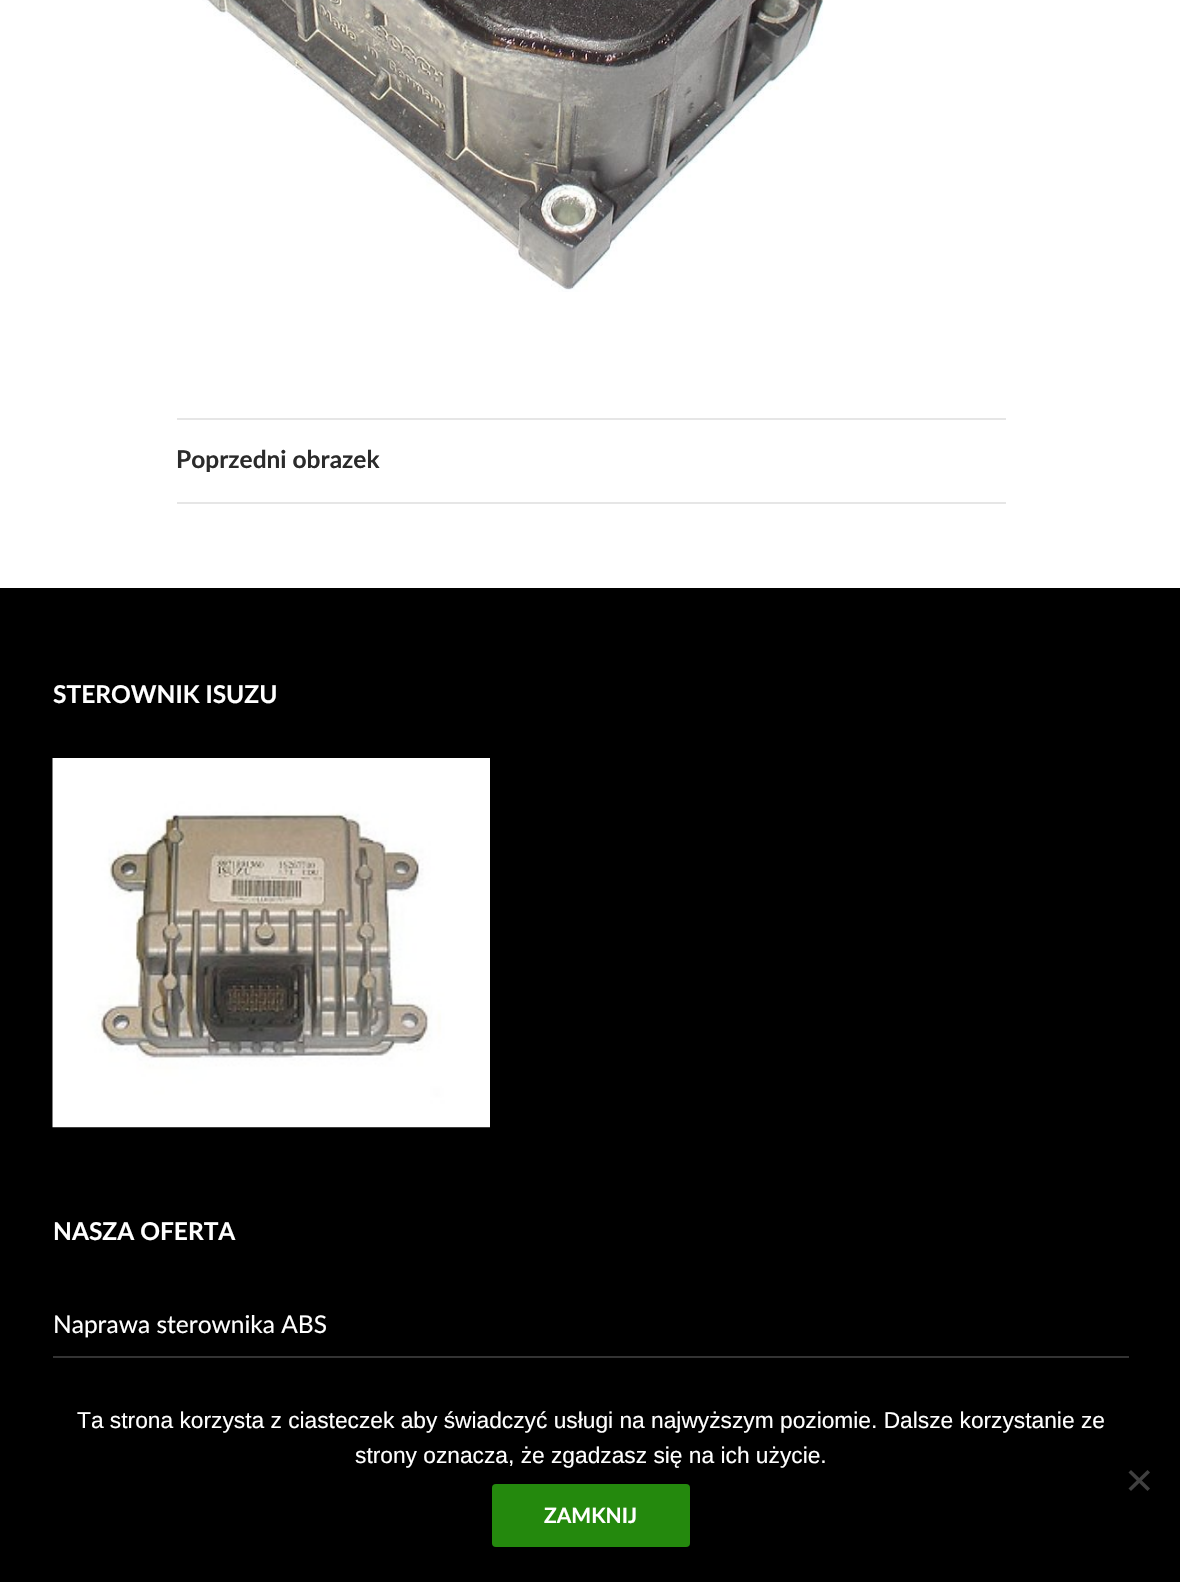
void draw(SkCanvas* canvas) {
    SkPaint paint;
    paint.setAntiAlias(true);
    canvas->clear(0xFFFFFFFF);
    canvas->drawImageRect(SkImages::DeferredFromEncodedData(SkData::MakeFromFileName("img1.png")), SkRect::MakeXYWH(202, 0, 622, 292), SkSamplingOptions());
    paint.setColor(0xFFE6E6E6);
    canvas->drawRect(SkRect::MakeXYWH(177, 418, 829, 2), paint);
    canvas->drawRect(SkRect::MakeXYWH(177, 502, 829, 2), paint);
    SkFont font1(fontMgr->matchFamilyStyle("Lato", SkFontStyle::Bold()), 24.5f);
    font1.setSubpixel(true);
    paint.setColor(0xFF2B2B2B);
    canvas->drawString("Poprzedni obrazek", 176, 468, font1, paint);
    paint.setColor(0xFF000000);
    canvas->drawRect(SkRect::MakeXYWH(0, 588, 1180, 994), paint);
    paint.setColor(0xFFFFFFFF);
    canvas->drawString("STEROWNIK ISUZU", 53, 703, font1, paint);
    canvas->drawImageRect(SkImages::DeferredFromEncodedData(SkData::MakeFromFileName("img2.png")), SkRect::MakeXYWH(52, 758, 438, 370), SkSamplingOptions());
    canvas->drawString("NASZA OFERTA", 53, 1240, font1, paint);
    SkFont font2(fontMgr->matchFamilyStyle("Lato", SkFontStyle::Normal()), 24.5f);
    font2.setSubpixel(true);
    canvas->drawString("Naprawa sterownika ABS", 53, 1333, font2, paint);
    paint.setColor(0xFF333333);
    canvas->drawRect(SkRect::MakeXYWH(53, 1356, 1076, 2), paint);
    SkFont font3(fontMgr->matchFamilyStyle("Liberation Sans", SkFontStyle::Normal()), 22.75f);
    font3.setSubpixel(true);
    paint.setColor(0xFFFFFFFF);
    canvas->drawString("Ta strona korzysta z ciasteczek aby świadczyć usługi na najwyższym poziomie. Dalsze korzystanie ze", 77, 1428, font3, paint);
    canvas->drawString("strony oznacza, że zgadzasz się na ich użycie.", 355, 1463, font3, paint);
    paint.setColor(0xFF404040);
    canvas->drawPath(SkPathBuilder().moveTo(1147.5f, 1470).lineTo(1150, 1472.5f).lineTo(1131, 1491).lineTo(1128.5f, 1488.5f).close().detach(), paint);
    canvas->drawPath(SkPathBuilder().moveTo(1128.5f, 1472.5f).lineTo(1131, 1470).lineTo(1150, 1488.5f).lineTo(1147.5f, 1491).close().detach(), paint);
    paint.setColor(0xFF24890D);
    canvas->drawRoundRect(SkRect::MakeXYWH(492, 1484, 198, 63), 4, 4, paint);
    SkFont font4(fontMgr->matchFamilyStyle("Lato", SkFontStyle::Bold()), 21);
    font4.setSubpixel(true);
    paint.setColor(0xFFFFFFFF);
    canvas->drawString("ZAMKNIJ", 544, 1523, font4, paint);
}
